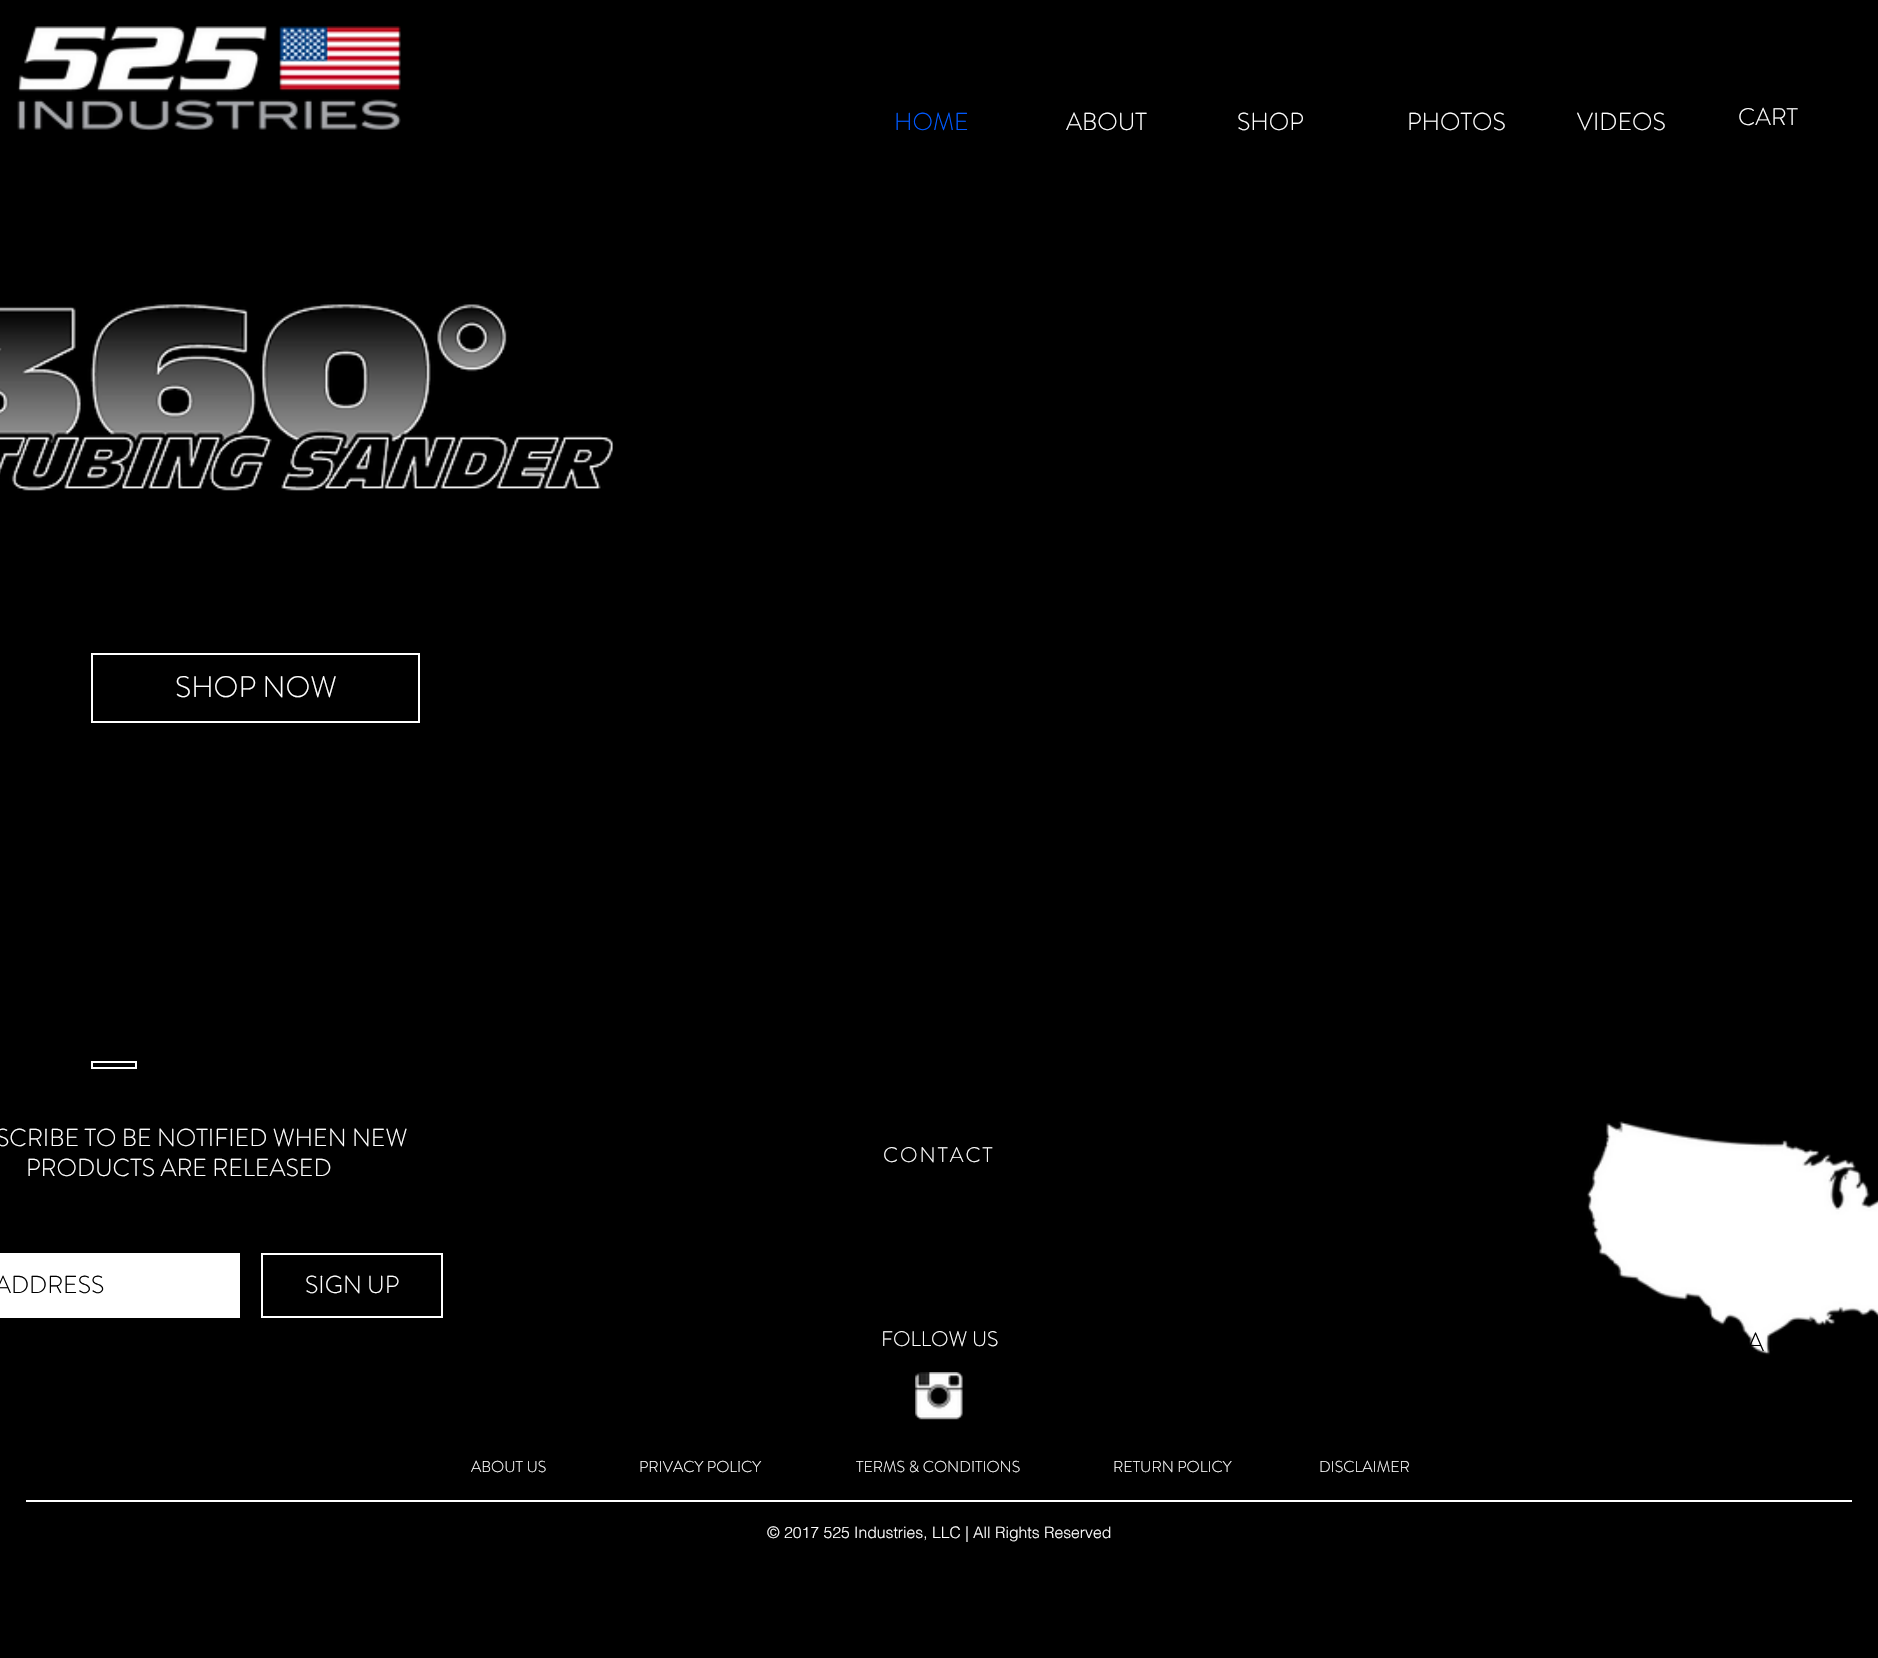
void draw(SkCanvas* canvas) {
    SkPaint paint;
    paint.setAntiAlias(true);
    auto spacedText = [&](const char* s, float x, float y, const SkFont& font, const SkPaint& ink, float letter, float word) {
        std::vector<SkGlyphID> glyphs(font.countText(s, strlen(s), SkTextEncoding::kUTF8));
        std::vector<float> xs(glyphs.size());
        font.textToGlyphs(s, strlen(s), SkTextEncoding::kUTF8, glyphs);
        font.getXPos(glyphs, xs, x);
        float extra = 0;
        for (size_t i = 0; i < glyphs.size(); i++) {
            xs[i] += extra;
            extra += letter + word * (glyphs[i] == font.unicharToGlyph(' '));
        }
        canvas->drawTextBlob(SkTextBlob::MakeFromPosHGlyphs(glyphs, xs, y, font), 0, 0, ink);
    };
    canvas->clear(0xFF000000);
    canvas->drawImageRect(SkImages::DeferredFromEncodedData(SkData::MakeFromFileName("img1.png")), SkRect::MakeXYWH(17, 26, 384, 105), SkSamplingOptions());
    SkFont font1(fontMgr->matchFamilyStyle("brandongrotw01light", SkFontStyle(300, SkFontStyle::kNormal_Width, SkFontStyle::kUpright_Slant)), 24.5f);
    font1.setSubpixel(true);
    paint.setColor(0xFF0059FF);
    canvas->drawString("HOME", 894, 130, font1, paint);
    paint.setColor(0xFFFFFFFF);
    canvas->drawString("ABOUT", 1066, 130, font1, paint);
    canvas->drawString("SHOP", 1237, 130, font1, paint);
    canvas->drawString("PHOTOS", 1407, 130, font1, paint);
    canvas->drawString("VIDEOS", 1577, 130, font1, paint);
    SkFont font2(fontMgr->matchFamilyStyle("brandongrotw01light", SkFontStyle(300, SkFontStyle::kNormal_Width, SkFontStyle::kUpright_Slant)), 24);
    font2.setSubpixel(true);
    canvas->drawString("CART", 1738, 125, font2, paint);
    canvas->drawImageRect(SkImages::DeferredFromEncodedData(SkData::MakeFromFileName("img2.png")), SkRect::MakeXYWH(0, 301, 614, 190), SkSamplingOptions());
    paint.setStyle(SkPaint::kStroke_Style);
    paint.setStrokeWidth(2);
    canvas->drawRect(SkRect::MakeXYWH(92, 654, 327, 68), paint);
    SkFont font3(fontMgr->matchFamilyStyle("brandongrotw01light", SkFontStyle(300, SkFontStyle::kNormal_Width, SkFontStyle::kUpright_Slant)), 29.75f);
    font3.setSubpixel(true);
    paint.setStyle(SkPaint::kFill_Style);
    canvas->drawString("SHOP NOW", 175, 697, font3, paint);
    paint.setStyle(SkPaint::kStroke_Style);
    canvas->drawRect(SkRect::MakeXYWH(92, 1062, 44, 6), paint);
    paint.setStyle(SkPaint::kFill_Style);
    canvas->drawString("SCRIBE TO BE NOTIFIED WHEN NEW", -4, 1146, font1, paint);
    canvas->drawString("PRODUCTS ARE RELEASED", 26, 1176, font1, paint);
    canvas->drawRect(SkRect::MakeXYWH(0, 1253, 240, 65), paint);
    paint.setColor(0xFF000000);
    canvas->drawString("ADDRESS", -5, 1293, font1, paint);
    paint.setStyle(SkPaint::kStroke_Style);
    paint.setColor(0xFFFFFFFF);
    canvas->drawRect(SkRect::MakeXYWH(262, 1254, 180, 63), paint);
    paint.setStyle(SkPaint::kFill_Style);
    canvas->drawString("SIGN UP", 305, 1293, font1, paint);
    SkFont font4(fontMgr->matchFamilyStyle("brandongrotw01light", SkFontStyle(300, SkFontStyle::kNormal_Width, SkFontStyle::kUpright_Slant)), 21);
    font4.setSubpixel(true);
    spacedText("CONTACT", 883, 1162, font4, paint, 2, 0);
    canvas->drawImageRect(SkImages::DeferredFromEncodedData(SkData::MakeFromFileName("img3.png")), SkRect::MakeXYWH(1587, 1121, 291, 234), SkSamplingOptions());
    canvas->drawString("FOLLOW US", 881, 1346, font4, paint);
    SkFont font5(fontMgr->matchFamilyStyle("brandongrotw01light", SkFontStyle(300, SkFontStyle::kNormal_Width, SkFontStyle::kUpright_Slant)), 26);
    font5.setSubpixel(true);
    paint.setColor(0xFF000000);
    spacedText("A", 1747, 1351, font5, paint, 3, 0);
    canvas->drawImageRect(SkImages::DeferredFromEncodedData(SkData::MakeFromFileName("img4.png")), SkRect::MakeXYWH(915, 1372, 48, 48), SkSamplingOptions());
    SkFont font6(fontMgr->matchFamilyStyle("brandongrotw01light", SkFontStyle(300, SkFontStyle::kNormal_Width, SkFontStyle::kUpright_Slant)), 15.75f);
    font6.setSubpixel(true);
    paint.setColor(0xFFFFFFFF);
    canvas->drawString("ABOUT US", 471, 1472, font6, paint);
    canvas->drawString("PRIVACY POLICY", 639, 1472, font6, paint);
    canvas->drawString("TERMS & CONDITIONS", 856, 1472, font6, paint);
    canvas->drawString("RETURN POLICY", 1113, 1472, font6, paint);
    canvas->drawString("DISCLAIMER", 1319, 1472, font6, paint);
    canvas->drawRect(SkRect::MakeXYWH(26, 1500, 1826, 2), paint);
    SkFont font7(fontMgr->matchFamilyStyle("helvetica", SkFontStyle(300, SkFontStyle::kNormal_Width, SkFontStyle::kUpright_Slant)), 15.75f);
    font7.setSubpixel(true);
    canvas->drawString("© 2017 525 Industries, LLC | All Rights Reserved", 767, 1538, font7, paint);
}
